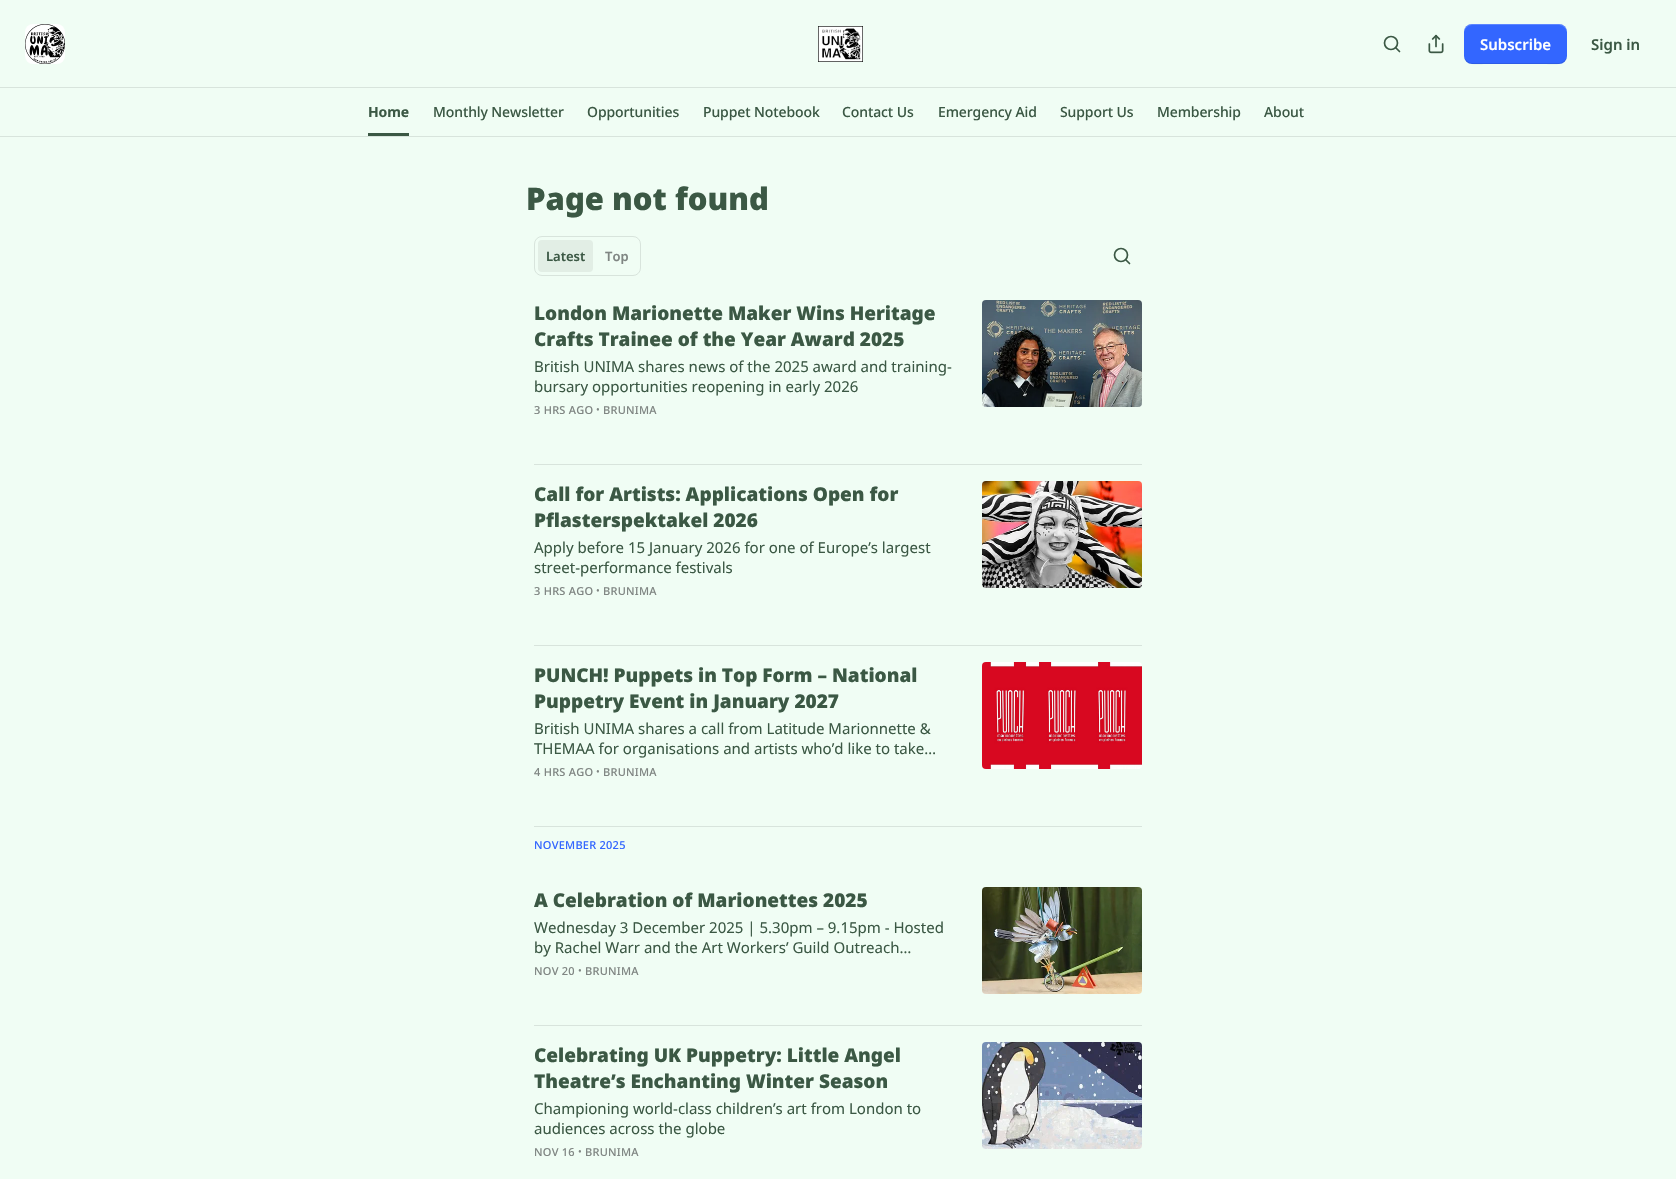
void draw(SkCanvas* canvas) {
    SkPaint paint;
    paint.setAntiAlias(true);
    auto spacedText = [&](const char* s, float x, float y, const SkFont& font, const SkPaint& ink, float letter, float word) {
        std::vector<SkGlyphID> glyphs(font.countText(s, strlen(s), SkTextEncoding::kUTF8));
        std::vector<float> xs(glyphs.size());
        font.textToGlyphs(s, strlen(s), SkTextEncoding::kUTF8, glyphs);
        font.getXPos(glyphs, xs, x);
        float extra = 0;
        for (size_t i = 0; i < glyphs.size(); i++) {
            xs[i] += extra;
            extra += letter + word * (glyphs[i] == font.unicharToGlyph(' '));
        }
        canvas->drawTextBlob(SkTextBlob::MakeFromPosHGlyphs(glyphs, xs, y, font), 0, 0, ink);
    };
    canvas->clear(0xFFF0FDF4);
    paint.setColor(0xFFFFFFFF);
    canvas->drawRoundRect(SkRect::MakeXYWH(25, 24, 40, 40), 8, 8, paint);
    canvas->drawImageRect(SkImages::DeferredFromEncodedData(SkData::MakeFromFileName("img1.png")), SkRect::MakeXYWH(25, 24, 40, 40), SkSamplingOptions());
    canvas->drawImageRect(SkImages::DeferredFromEncodedData(SkData::MakeFromFileName("img2.png")), SkRect::MakeXYWH(818, 26, 45, 36), SkSamplingOptions());
    paint.setStyle(SkPaint::kStroke_Style);
    paint.setStrokeWidth(1.7f);
    paint.setColor(0xFF3B5844);
    canvas->drawCircle(1391, 43, 6.5f, paint);
    paint.setStrokeCap(SkPaint::kRound_Cap);
    paint.setStrokeJoin(SkPaint::kRound_Join);
    canvas->drawPath(SkPathBuilder().moveTo(1399.5f, 51.5f).lineTo(1396, 48).detach(), paint);
    canvas->drawImageRect(SkImages::DeferredFromEncodedData(SkData::MakeFromFileName("img3.png")), SkRect::MakeXYWH(1428, 34, 16, 20), SkSamplingOptions());
    paint.setStyle(SkPaint::kFill_Style);
    paint.setColor(0xFF3366FF);
    canvas->drawRoundRect(SkRect::MakeXYWH(1464, 24, 103, 40), 8, 8, paint);
    paint.setColor(0x1A000000);
    canvas->drawPath(SkPathBuilder().moveTo(1464, 55).cubicTo(1464, 67, 1478, 64, 1486, 64).lineTo(1544, 64).cubicTo(1553, 64, 1567, 67, 1567, 55).cubicTo(1567, 59, 1563, 63, 1559, 63).lineTo(1472, 63).cubicTo(1468, 63, 1464, 59, 1464, 55).close().detach(), paint);
    paint.setColor(0x33FFFFFF);
    canvas->drawPath(SkPathBuilder().moveTo(1472, 25).lineTo(1559, 25).cubicTo(1563, 25, 1567, 29, 1567, 33).cubicTo(1567, 21, 1553, 24, 1544, 24).lineTo(1486, 24).cubicTo(1478, 24, 1464, 21, 1464, 33).cubicTo(1464, 29, 1468, 25, 1472, 25).close().detach(), paint);
    SkFont font1(fontMgr->matchFamilyStyle("Noto Sans", SkFontStyle(600, SkFontStyle::kNormal_Width, SkFontStyle::kUpright_Slant)), 15);
    font1.setSubpixel(true);
    paint.setColor(0xFFFFFFFF);
    canvas->drawString("Subscribe", 1480, 50, font1, paint);
    paint.setColor(0xFF3B5844);
    canvas->drawString("Sign in", 1591, 50, font1, paint);
    paint.setColor(0xFFD8E4DC);
    canvas->drawRect(SkRect::MakeXYWH(0, 87, 1676, 1), paint);
    canvas->drawRect(SkRect::MakeXYWH(0, 136, 1676, 1), paint);
    paint.setColor(0xFF3B5844);
    canvas->drawRect(SkRect::MakeXYWH(368, 133, 41, 3), paint);
    SkFont font2(fontMgr->matchFamilyStyle("Noto Sans", SkFontStyle::Bold()), 14);
    font2.setSubpixel(true);
    spacedText("Home", 368, 117, font2, paint, -0.1f, 0);
    SkFont font3(fontMgr->matchFamilyStyle("Noto Sans", SkFontStyle(500, SkFontStyle::kNormal_Width, SkFontStyle::kUpright_Slant)), 14);
    font3.setSubpixel(true);
    spacedText("Monthly Newsletter", 433, 117, font3, paint, -0.1f, 0);
    spacedText("Opportunities", 587, 117, font3, paint, -0.1f, 0);
    spacedText("Puppet Notebook", 703, 117, font3, paint, -0.1f, 0);
    spacedText("Contact Us", 842, 117, font3, paint, -0.1f, 0);
    spacedText("Emergency Aid", 938, 117, font3, paint, -0.1f, 0);
    spacedText("Support Us", 1060, 117, font3, paint, -0.1f, 0);
    spacedText("Membership", 1157, 117, font3, paint, -0.1f, 0);
    spacedText("About", 1264, 117, font3, paint, -0.1f, 0);
    SkFont font4(fontMgr->matchFamilyStyle("Noto Sans", SkFontStyle(900, SkFontStyle::kNormal_Width, SkFontStyle::kUpright_Slant)), 31);
    font4.setSubpixel(true);
    canvas->drawString("Page not found", 526, 210, font4, paint);
    paint.setStyle(SkPaint::kStroke_Style);
    paint.setStrokeWidth(1);
    paint.setStrokeCap(SkPaint::kButt_Cap);
    paint.setStrokeJoin(SkPaint::kMiter_Join);
    paint.setColor(0xFFD8E4DC);
    canvas->drawRoundRect(SkRect::MakeXYWH(534.5f, 236.5f, 106, 39), 7.5f, 7.5f, paint);
    paint.setStyle(SkPaint::kFill_Style);
    paint.setColor(0xFFE2EEE5);
    canvas->drawRoundRect(SkRect::MakeXYWH(538, 240, 55, 32), 4, 4, paint);
    SkFont font5(fontMgr->matchFamilyStyle("Noto Sans", SkFontStyle(600, SkFontStyle::kNormal_Width, SkFontStyle::kUpright_Slant)), 13);
    font5.setSubpixel(true);
    paint.setColor(0xFF3B5844);
    canvas->drawString("Latest", 546, 261, font5, paint);
    paint.setColor(0xFF808683);
    canvas->drawString("Top", 605, 261, font5, paint);
    paint.setStyle(SkPaint::kStroke_Style);
    paint.setStrokeWidth(1.7f);
    paint.setColor(0xFF3B5844);
    canvas->drawCircle(1121, 255, 6.5f, paint);
    paint.setStrokeCap(SkPaint::kRound_Cap);
    paint.setStrokeJoin(SkPaint::kRound_Join);
    canvas->drawPath(SkPathBuilder().moveTo(1129.5f, 263.5f).lineTo(1126, 260).detach(), paint);
    SkFont font6(fontMgr->matchFamilyStyle("Noto Sans", SkFontStyle(900, SkFontStyle::kNormal_Width, SkFontStyle::kUpright_Slant)), 19);
    font6.setSubpixel(true);
    paint.setStyle(SkPaint::kFill_Style);
    canvas->drawString("London Marionette Maker Wins Heritage", 534, 320, font6, paint);
    canvas->drawString("Crafts Trainee of the Year Award 2025", 534, 346, font6, paint);
    SkFont font7(fontMgr->matchFamilyStyle("Noto Sans", SkFontStyle::Normal()), 15);
    font7.setSubpixel(true);
    canvas->drawString("British UNIMA shares news of the 2025 award and training-", 534, 372, font7, paint);
    canvas->drawString("bursary opportunities reopening in early 2026", 534, 392, font7, paint);
    SkFont font8(fontMgr->matchFamilyStyle("Noto Sans", SkFontStyle(500, SkFontStyle::kNormal_Width, SkFontStyle::kUpright_Slant)), 11);
    font8.setSubpixel(true);
    paint.setColor(0xFF808683);
    spacedText("3 HRS AGO", 534, 414, font8, paint, 0.25f, 0);
    SkFont font9(fontMgr->matchFamilyStyle("Noto Sans", SkFontStyle::Normal()), 10);
    font9.setSubpixel(true);
    spacedText("•", 596, 413, font9, paint, 0.25f, 0);
    spacedText("BRUNIMA", 603, 414, font8, paint, 0.25f, 0);
    canvas->drawImageRect(SkImages::DeferredFromEncodedData(SkData::MakeFromFileName("img4.png")), SkRect::MakeXYWH(982, 300, 160, 107), SkSamplingOptions());
    paint.setColor(0xFFD8E4DC);
    canvas->drawRect(SkRect::MakeXYWH(534, 464, 608, 1), paint);
    paint.setColor(0xFF3B5844);
    canvas->drawString("Call for Artists: Applications Open for", 534, 501, font6, paint);
    canvas->drawString("Pflasterspektakel 2026", 534, 527, font6, paint);
    canvas->drawString("Apply before 15 January 2026 for one of Europe’s largest", 534, 553, font7, paint);
    canvas->drawString("street-performance festivals", 534, 573, font7, paint);
    paint.setColor(0xFF808683);
    spacedText("3 HRS AGO", 534, 595, font8, paint, 0.25f, 0);
    spacedText("•", 596, 594, font9, paint, 0.25f, 0);
    spacedText("BRUNIMA", 603, 595, font8, paint, 0.25f, 0);
    canvas->drawImageRect(SkImages::DeferredFromEncodedData(SkData::MakeFromFileName("img5.png")), SkRect::MakeXYWH(982, 481, 160, 107), SkSamplingOptions());
    paint.setColor(0xFFD8E4DC);
    canvas->drawRect(SkRect::MakeXYWH(534, 645, 608, 1), paint);
    paint.setColor(0xFF3B5844);
    canvas->drawString("PUNCH! Puppets in Top Form – National", 534, 682, font6, paint);
    canvas->drawString("Puppetry Event in January 2027", 534, 708, font6, paint);
    canvas->drawString("British UNIMA shares a call from Latitude Marionnette &", 534, 734, font7, paint);
    canvas->drawString("THEMAA for organisations and artists who’d like to take…", 534, 754, font7, paint);
    paint.setColor(0xFF808683);
    spacedText("4 HRS AGO", 534, 776, font8, paint, 0.25f, 0);
    spacedText("•", 596, 775, font9, paint, 0.25f, 0);
    spacedText("BRUNIMA", 603, 776, font8, paint, 0.25f, 0);
    canvas->drawImageRect(SkImages::DeferredFromEncodedData(SkData::MakeFromFileName("img6.png")), SkRect::MakeXYWH(982, 662, 160, 107), SkSamplingOptions());
    paint.setColor(0xFFD8E4DC);
    canvas->drawRect(SkRect::MakeXYWH(534, 826, 608, 1), paint);
    paint.setColor(0xFF3366FF);
    spacedText("NOVEMBER 2025", 534, 849, font8, paint, 0.25f, 0);
    paint.setColor(0xFF3B5844);
    canvas->drawString("A Celebration of Marionettes 2025", 534, 907, font6, paint);
    canvas->drawString("Wednesday 3 December 2025 | 5.30pm – 9.15pm - Hosted", 534, 933, font7, paint);
    canvas->drawString("by Rachel Warr and the Art Workers’ Guild Outreach…", 534, 953, font7, paint);
    paint.setColor(0xFF808683);
    spacedText("NOV 20", 534, 975, font8, paint, 0.25f, 0);
    spacedText("•", 578, 974, font9, paint, 0.25f, 0);
    spacedText("BRUNIMA", 585, 975, font8, paint, 0.25f, 0);
    canvas->drawImageRect(SkImages::DeferredFromEncodedData(SkData::MakeFromFileName("img7.png")), SkRect::MakeXYWH(982, 887, 160, 107), SkSamplingOptions());
    paint.setColor(0xFFD8E4DC);
    canvas->drawRect(SkRect::MakeXYWH(534, 1025, 608, 1), paint);
    paint.setColor(0xFF3B5844);
    canvas->drawString("Celebrating UK Puppetry: Little Angel", 534, 1062, font6, paint);
    canvas->drawString("Theatre’s Enchanting Winter Season", 534, 1088, font6, paint);
    canvas->drawString("Championing world-class children’s art from London to", 534, 1114, font7, paint);
    canvas->drawString("audiences across the globe", 534, 1134, font7, paint);
    paint.setColor(0xFF808683);
    spacedText("NOV 16", 534, 1156, font8, paint, 0.25f, 0);
    spacedText("•", 578, 1155, font9, paint, 0.25f, 0);
    spacedText("BRUNIMA", 585, 1156, font8, paint, 0.25f, 0);
    canvas->drawImageRect(SkImages::DeferredFromEncodedData(SkData::MakeFromFileName("img8.png")), SkRect::MakeXYWH(982, 1042, 160, 107), SkSamplingOptions());
}
